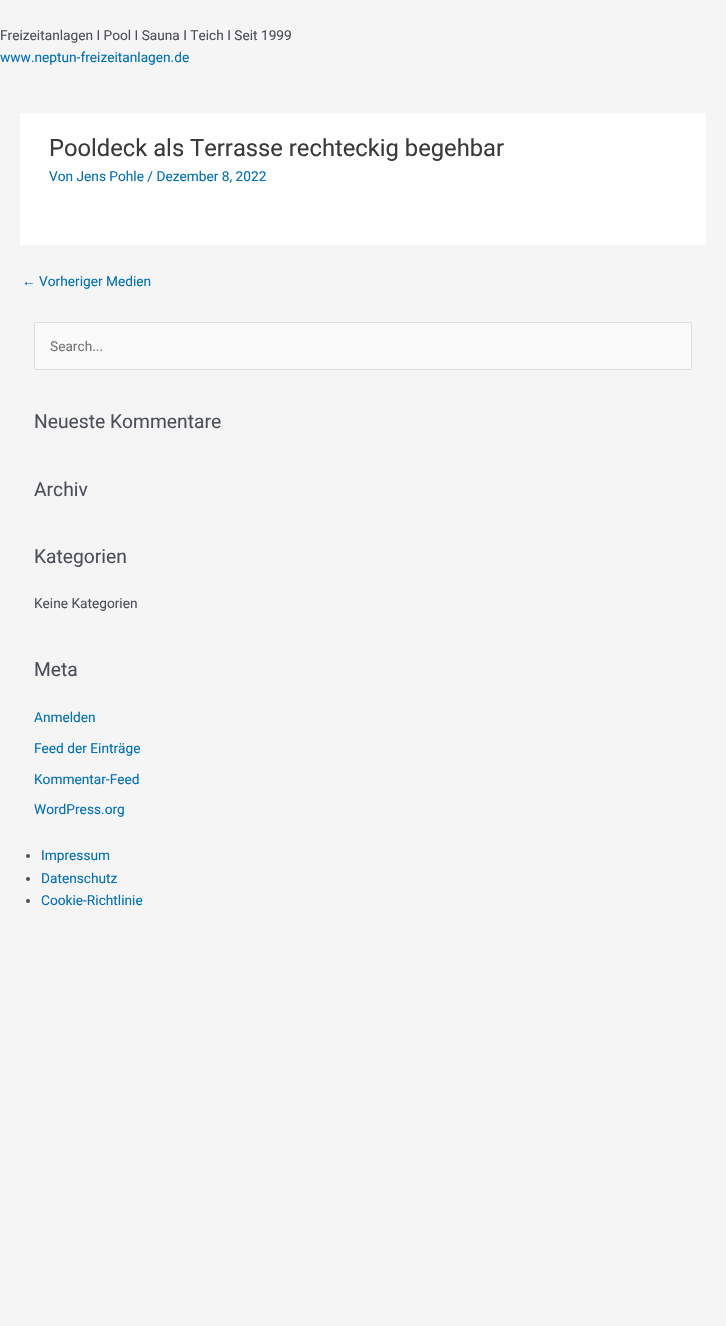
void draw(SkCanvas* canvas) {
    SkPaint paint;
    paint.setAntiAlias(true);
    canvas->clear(0xFFF5F5F5);
    SkFont font1(fontMgr->matchFamilyStyle("Roboto", SkFontStyle::Normal()), 13.7f);
    font1.setSubpixel(true);
    paint.setColor(0xFF4B4F58);
    canvas->drawString("Freizeitanlagen I Pool I Sauna I Teich I Seit 1999", 0, 40, font1, paint);
    paint.setColor(0xFF0170B9);
    canvas->drawString("www.neptun-freizeitanlagen.de", 0, 62, font1, paint);
    paint.setColor(0xFFFFFFFF);
    canvas->drawRect(SkRect::MakeXYWH(20, 113, 686, 132), paint);
    SkFont font2(fontMgr->matchFamilyStyle("Roboto", SkFontStyle::Normal()), 23.75f);
    font2.setSubpixel(true);
    paint.setColor(0xFF3A3A3A);
    canvas->drawString("Pooldeck als Terrasse rechteckig begehbar", 49, 156, font2, paint);
    paint.setColor(0xFF0170B9);
    canvas->drawString("Von Jens Pohle / Dezember 8, 2022", 49, 181, font1, paint);
    SkFont font3(fontMgr->matchFamilyStyle("Liberation Sans", SkFontStyle::Normal()), 13.7f);
    font3.setSubpixel(true);
    canvas->drawString("←", 22, 286, font3, paint);
    canvas->drawString("Vorheriger Medien", 39, 286, font1, paint);
    paint.setColor(0xFFFAFAFA);
    canvas->drawRoundRect(SkRect::MakeXYWH(34.5f, 322.5f, 657, 47), 1.5f, 1.5f, paint);
    paint.setStyle(SkPaint::kStroke_Style);
    paint.setStrokeWidth(1);
    paint.setColor(0xFFDDDDDD);
    canvas->drawRoundRect(SkRect::MakeXYWH(34.5f, 322.5f, 657, 47), 1.5f, 1.5f, paint);
    paint.setStyle(SkPaint::kFill_Style);
    paint.setColor(0xFF757575);
    canvas->drawString("Search...", 50, 351, font1, paint);
    SkFont font4(fontMgr->matchFamilyStyle("Roboto", SkFontStyle::Normal()), 19.25f);
    font4.setSubpixel(true);
    paint.setColor(0xFF4B4F58);
    canvas->drawString("Neueste Kommentare", 34, 428, font4, paint);
    canvas->drawString("Archiv", 34, 496, font4, paint);
    canvas->drawString("Kategorien", 34, 563, font4, paint);
    canvas->drawString("Keine Kategorien", 34, 608, font1, paint);
    canvas->drawString("Meta", 34, 676, font4, paint);
    paint.setColor(0xFF0170B9);
    canvas->drawString("Anmelden", 34, 722, font1, paint);
    canvas->drawString("Feed der Einträge", 34, 753, font1, paint);
    canvas->drawString("Kommentar-Feed", 34, 784, font1, paint);
    canvas->drawString("WordPress.org", 34, 814, font1, paint);
    paint.setColor(0xFF4B4F58);
    canvas->drawCircle(28, 856, 2, paint);
    paint.setColor(0xFF0170B9);
    canvas->drawString("Impressum", 41, 860, font1, paint);
    paint.setColor(0xFF4B4F58);
    canvas->drawCircle(28, 879, 2, paint);
    paint.setColor(0xFF0170B9);
    canvas->drawString("Datenschutz", 41, 883, font1, paint);
    paint.setColor(0xFF4B4F58);
    canvas->drawCircle(28, 901, 2, paint);
    paint.setColor(0xFF0170B9);
    canvas->drawString("Cookie-Richtlinie", 41, 905, font1, paint);
}
